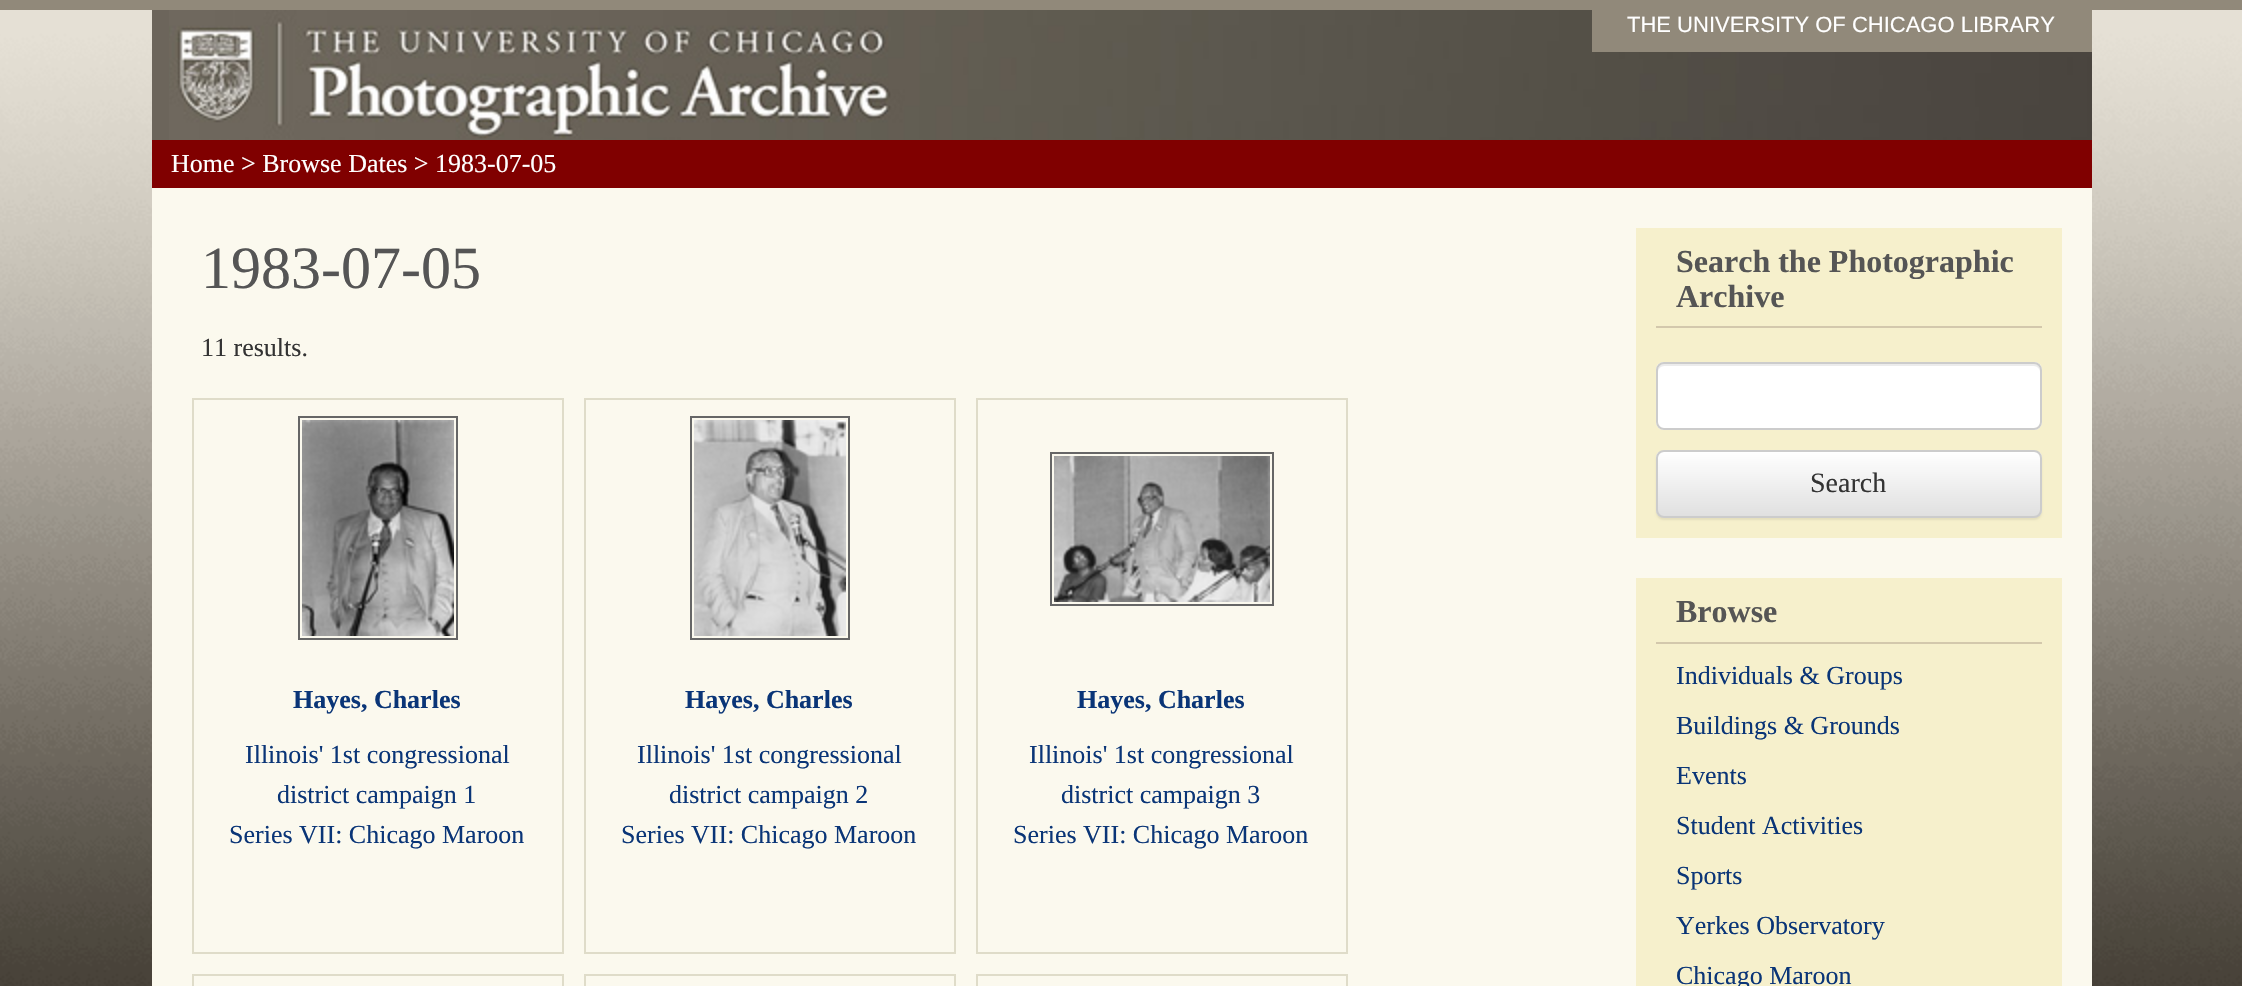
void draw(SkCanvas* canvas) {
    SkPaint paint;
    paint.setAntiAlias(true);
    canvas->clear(0xFFFFFFFF);
    canvas->drawImageRect(SkImages::DeferredFromEncodedData(SkData::MakeFromFileName("img1.png")), SkRect::MakeXYWH(0, 10, 2242, 976), SkSamplingOptions());
    paint.setColor(0xFF91897A);
    canvas->drawRect(SkRect::MakeXYWH(0, 0, 2242, 10), paint);
    paint.setColor(0xFF6C655B);
    canvas->drawRect(SkRect::MakeXYWH(152, 10, 17, 130), paint);
    canvas->drawImageRect(SkImages::DeferredFromEncodedData(SkData::MakeFromFileName("img2.png")), SkRect::MakeXYWH(169, 10, 1923, 130), SkSamplingOptions());
    paint.setColor(0xFF91897A);
    canvas->drawRect(SkRect::MakeXYWH(1592, 10, 500, 42), paint);
    SkFont font1(fontMgr->matchFamilyStyle("Liberation Sans", SkFontStyle::Normal()), 22);
    font1.setSubpixel(true);
    paint.setColor(0xFFFFFFFF);
    canvas->drawString("THE UNIVERSITY OF CHICAGO LIBRARY", 1627, 32, font1, paint);
    paint.setColor(0xFF800000);
    canvas->drawRect(SkRect::MakeXYWH(152, 140, 1940, 48), paint);
    SkFont font2(fontMgr->matchFamilyStyle("Liberation Serif", SkFontStyle::Normal()), 26);
    font2.setSubpixel(true);
    paint.setColor(0xFFFFFFFF);
    canvas->drawString("Home > Browse Dates > 1983-07-05", 171, 172, font2, paint);
    paint.setColor(0xFFFBF9EE);
    canvas->drawRect(SkRect::MakeXYWH(152, 188, 1940, 798), paint);
    SkFont font3(fontMgr->matchFamilyStyle("Liberation Serif", SkFontStyle::Normal()), 60);
    font3.setSubpixel(true);
    paint.setColor(0xFF555555);
    canvas->drawString("1983-07-05", 201, 288, font3, paint);
    paint.setColor(0xFF333333);
    canvas->drawString("11 results.", 201, 356, font2, paint);
    paint.setStyle(SkPaint::kStroke_Style);
    paint.setStrokeWidth(2);
    paint.setColor(0xFFDFDCC9);
    canvas->drawRect(SkRect::MakeXYWH(193, 399, 370, 554), paint);
    paint.setColor(0xFF666666);
    canvas->drawRect(SkRect::MakeXYWH(299, 417, 158, 222), paint);
    canvas->drawImageRect(SkImages::DeferredFromEncodedData(SkData::MakeFromFileName("img3.png")), SkRect::MakeXYWH(302, 420, 152, 216), SkSamplingOptions());
    SkFont font4(fontMgr->matchFamilyStyle("Liberation Serif", SkFontStyle::Bold()), 26);
    font4.setSubpixel(true);
    paint.setStyle(SkPaint::kFill_Style);
    paint.setColor(0xFF0A3577);
    canvas->drawString("Hayes, Charles", 293, 708, font4, paint);
    canvas->drawString("Illinois' 1st congressional", 245, 763, font2, paint);
    canvas->drawString("district campaign 1", 277, 803, font2, paint);
    canvas->drawString("Series VII: Chicago Maroon", 229, 843, font2, paint);
    paint.setStyle(SkPaint::kStroke_Style);
    paint.setColor(0xFFDFDCC9);
    canvas->drawRect(SkRect::MakeXYWH(585, 399, 370, 554), paint);
    paint.setColor(0xFF666666);
    canvas->drawRect(SkRect::MakeXYWH(691, 417, 158, 222), paint);
    canvas->drawImageRect(SkImages::DeferredFromEncodedData(SkData::MakeFromFileName("img4.png")), SkRect::MakeXYWH(694, 420, 152, 216), SkSamplingOptions());
    paint.setStyle(SkPaint::kFill_Style);
    paint.setColor(0xFF0A3577);
    canvas->drawString("Hayes, Charles", 685, 708, font4, paint);
    canvas->drawString("Illinois' 1st congressional", 637, 763, font2, paint);
    canvas->drawString("district campaign 2", 669, 803, font2, paint);
    canvas->drawString("Series VII: Chicago Maroon", 621, 843, font2, paint);
    paint.setStyle(SkPaint::kStroke_Style);
    paint.setColor(0xFFDFDCC9);
    canvas->drawRect(SkRect::MakeXYWH(977, 399, 370, 554), paint);
    paint.setColor(0xFF666666);
    canvas->drawRect(SkRect::MakeXYWH(1051, 453, 222, 152), paint);
    canvas->drawImageRect(SkImages::DeferredFromEncodedData(SkData::MakeFromFileName("img5.png")), SkRect::MakeXYWH(1054, 456, 216, 146), SkSamplingOptions());
    paint.setStyle(SkPaint::kFill_Style);
    paint.setColor(0xFF0A3577);
    canvas->drawString("Hayes, Charles", 1077, 708, font4, paint);
    canvas->drawString("Illinois' 1st congressional", 1029, 763, font2, paint);
    canvas->drawString("district campaign 3", 1061, 803, font2, paint);
    canvas->drawString("Series VII: Chicago Maroon", 1013, 843, font2, paint);
    paint.setStyle(SkPaint::kStroke_Style);
    paint.setColor(0xFFDFDCC9);
    canvas->drawRect(SkRect::MakeXYWH(193, 975, 370, 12), paint);
    canvas->drawRect(SkRect::MakeXYWH(585, 975, 370, 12), paint);
    canvas->drawRect(SkRect::MakeXYWH(977, 975, 370, 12), paint);
    paint.setStyle(SkPaint::kFill_Style);
    paint.setColor(0xFFF6F0CC);
    canvas->drawRect(SkRect::MakeXYWH(1636, 228, 426, 310), paint);
    paint.setColor(0xFFD3C8AC);
    canvas->drawRect(SkRect::MakeXYWH(1656, 326, 386, 2), paint);
    SkFont font5(fontMgr->matchFamilyStyle("Liberation Serif", SkFontStyle::Bold()), 32);
    font5.setSubpixel(true);
    paint.setColor(0xFF555555);
    canvas->drawString("Search the Photographic", 1676, 272, font5, paint);
    canvas->drawString("Archive", 1676, 307, font5, paint);
    paint.setColor(0xFFFFFFFF);
    canvas->drawRoundRect(SkRect::MakeXYWH(1656, 362, 386, 68), 8, 8, paint);
    paint.setColor(0xFFECECEC);
    canvas->drawPath(SkPathBuilder().moveTo(1664, 366).lineTo(2034, 366).cubicTo(2037, 366, 2040, 369, 2040, 372).cubicTo(2040, 368, 2039, 364, 2034, 364).lineTo(1664, 364).cubicTo(1659, 364, 1658, 368, 1658, 372).cubicTo(1658, 369, 1661, 366, 1664, 366).close().detach(), paint);
    paint.setStyle(SkPaint::kStroke_Style);
    paint.setColor(0xFFCCCCCC);
    canvas->drawRoundRect(SkRect::MakeXYWH(1657, 363, 384, 66), 7, 7, paint);
    paint.setStyle(SkPaint::kFill_Style);
    paint.setColor(0x12000000);
    paint.setMaskFilter(SkMaskFilter::MakeBlur(kNormal_SkBlurStyle, 1));
    canvas->drawRoundRect(SkRect::MakeXYWH(1656, 452, 386, 68), 8, 8, paint);
    paint.setMaskFilter(nullptr);
    canvas->save();
    canvas->clipPath(SkPathBuilder().moveTo(1664, 450).lineTo(2034, 450).cubicTo(2038.5f, 450, 2042, 453.5f, 2042, 458).lineTo(2042, 510).cubicTo(2042, 514.5f, 2038.5f, 518, 2034, 518).lineTo(1664, 518).cubicTo(1659.5f, 518, 1656, 514.5f, 1656, 510).lineTo(1656, 458).cubicTo(1656, 453.5f, 1659.5f, 450, 1664, 450).close().detach(), true);
    {
        const SkColor colors[] = {0xFFFFFFFF, 0xFFE0E0E0};
        const float stops[] = {0, 1};
        const SkPoint ends[] = {{1849, 452}, {1849, 516}};
        paint.setShader(SkGradientShader::MakeLinear(ends, colors, stops, 2, SkTileMode::kClamp));
        paint.setAlpha(255);
    }
    canvas->drawRect(SkRect::MakeXYWH(1656, 452, 386, 64), paint);
    canvas->restore();
    paint.setStyle(SkPaint::kStroke_Style);
    paint.setShader(nullptr);
    paint.setColor(0xFFCCCCCC);
    canvas->drawRoundRect(SkRect::MakeXYWH(1657, 451, 384, 66), 7, 7, paint);
    SkFont font6(fontMgr->matchFamilyStyle("Liberation Serif", SkFontStyle::Normal()), 28);
    font6.setSubpixel(true);
    paint.setStyle(SkPaint::kFill_Style);
    paint.setColor(0xFF333333);
    canvas->drawString("Search", 1810, 492, font6, paint);
    paint.setColor(0xFFF6F0CC);
    canvas->drawRect(SkRect::MakeXYWH(1636, 578, 426, 408), paint);
    paint.setColor(0xFFD3C8AC);
    canvas->drawRect(SkRect::MakeXYWH(1656, 642, 386, 2), paint);
    paint.setColor(0xFF555555);
    canvas->drawString("Browse", 1676, 622, font5, paint);
    paint.setColor(0xFF0A3577);
    canvas->drawString("Individuals & Groups", 1676, 684, font2, paint);
    canvas->drawString("Buildings & Grounds", 1676, 734, font2, paint);
    canvas->drawString("Events", 1676, 784, font2, paint);
    canvas->drawString("Student Activities", 1676, 834, font2, paint);
    canvas->drawString("Sports", 1676, 884, font2, paint);
    canvas->drawString("Yerkes Observatory", 1676, 934, font2, paint);
    canvas->drawString("Chicago Maroon", 1676, 984, font2, paint);
}
